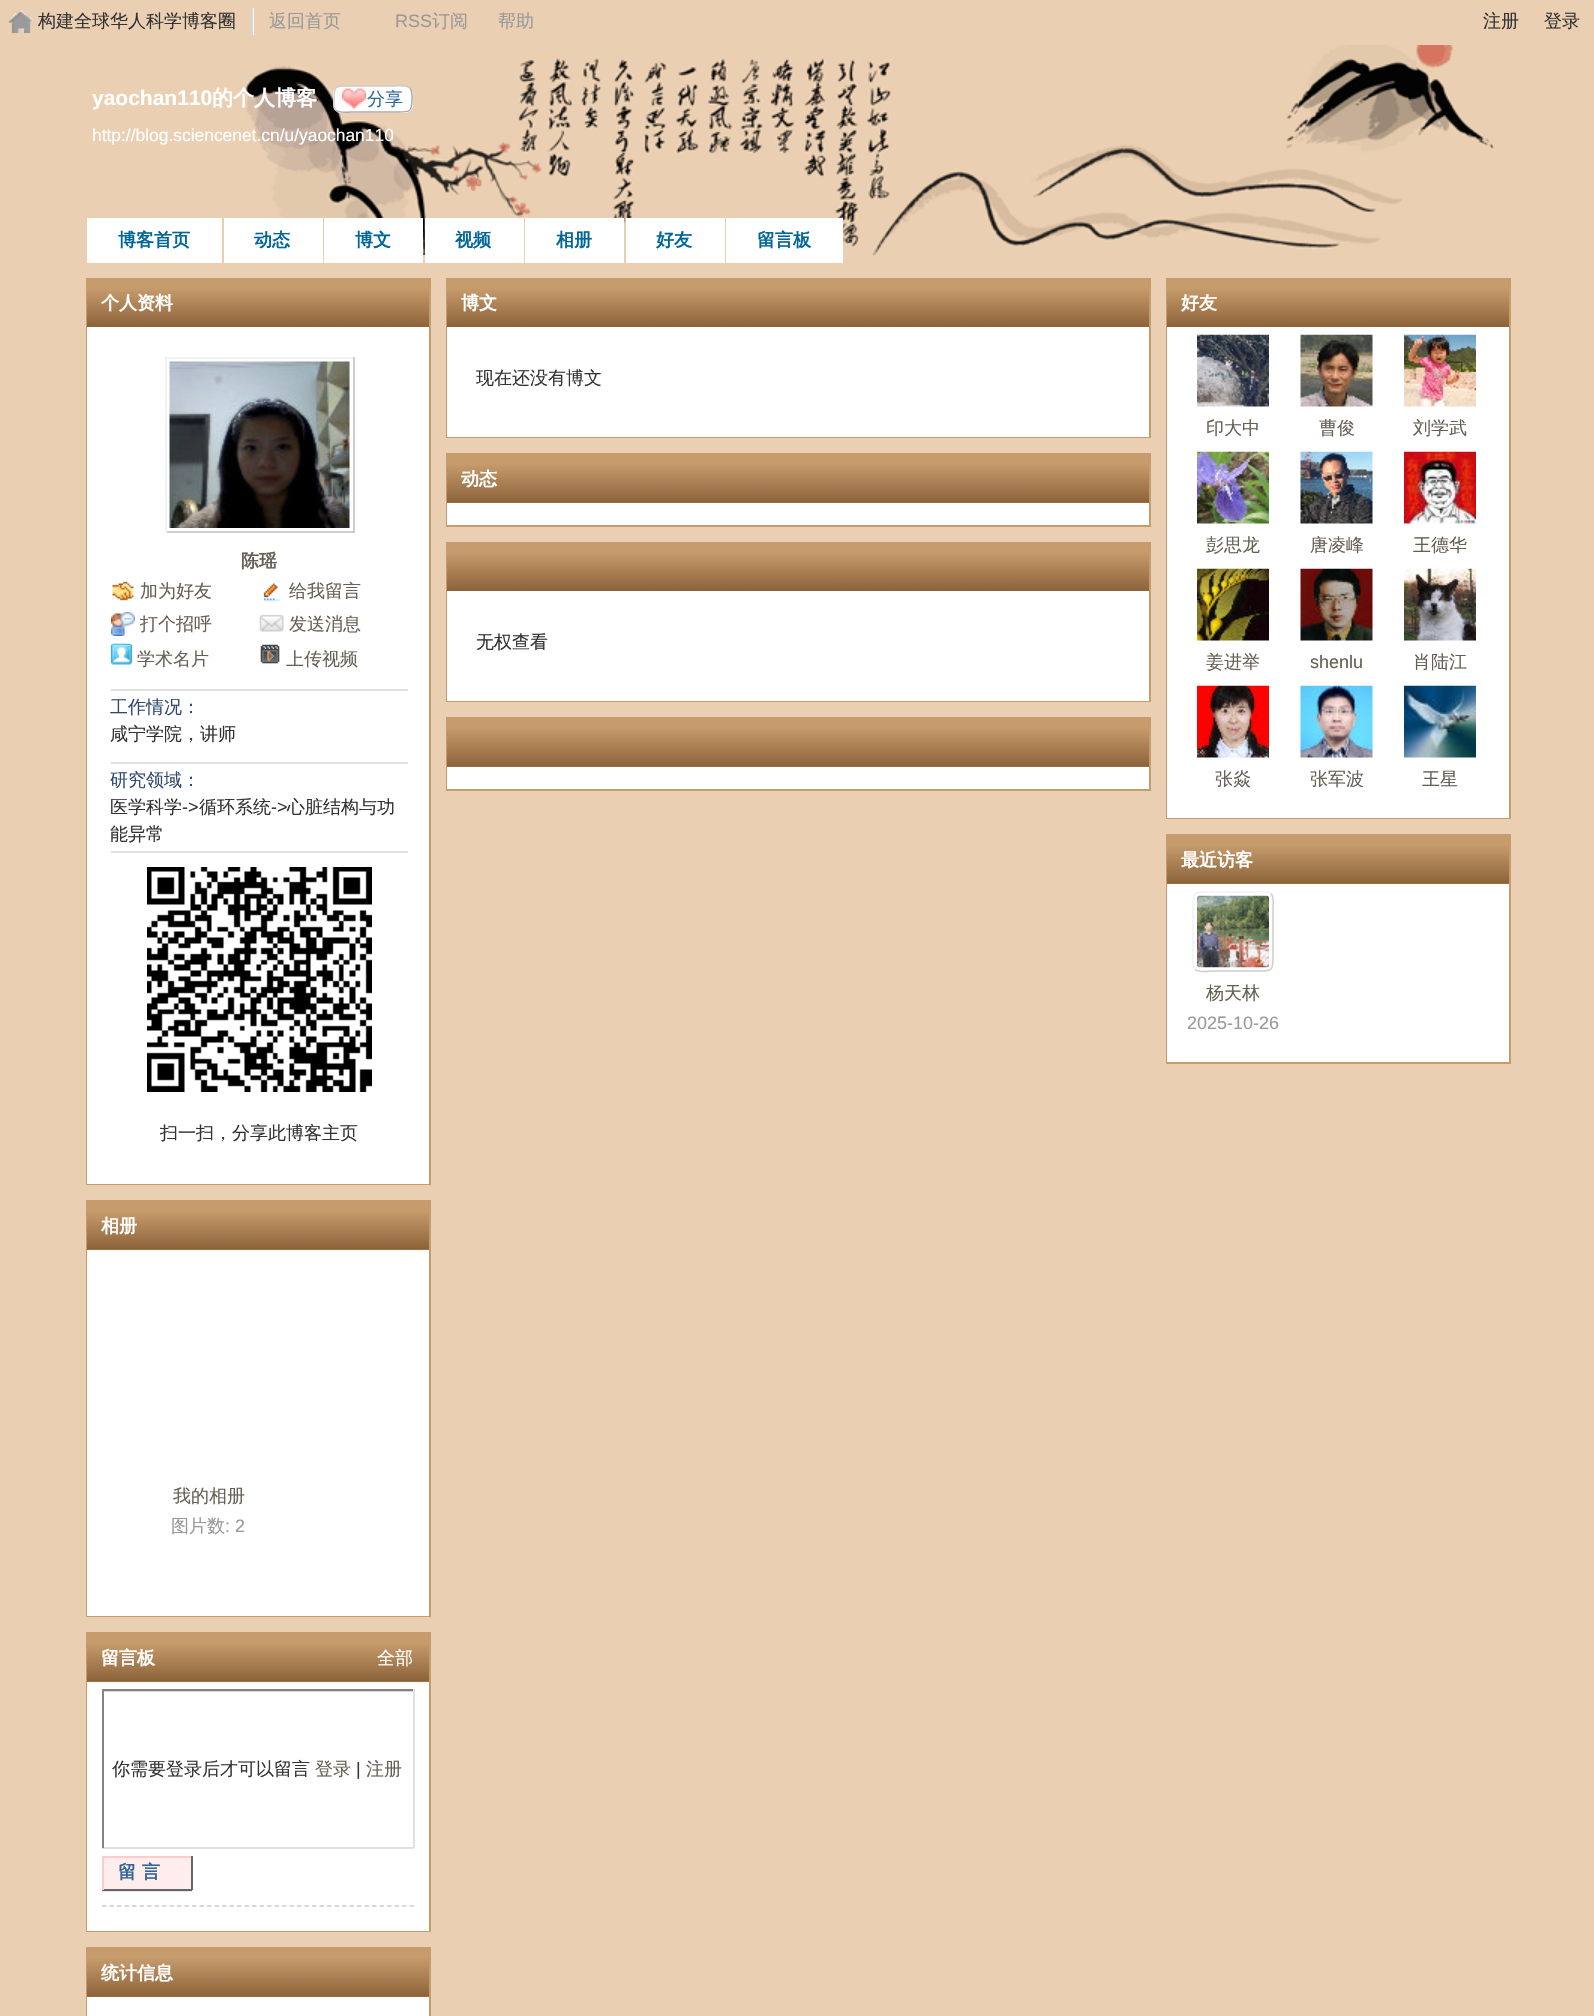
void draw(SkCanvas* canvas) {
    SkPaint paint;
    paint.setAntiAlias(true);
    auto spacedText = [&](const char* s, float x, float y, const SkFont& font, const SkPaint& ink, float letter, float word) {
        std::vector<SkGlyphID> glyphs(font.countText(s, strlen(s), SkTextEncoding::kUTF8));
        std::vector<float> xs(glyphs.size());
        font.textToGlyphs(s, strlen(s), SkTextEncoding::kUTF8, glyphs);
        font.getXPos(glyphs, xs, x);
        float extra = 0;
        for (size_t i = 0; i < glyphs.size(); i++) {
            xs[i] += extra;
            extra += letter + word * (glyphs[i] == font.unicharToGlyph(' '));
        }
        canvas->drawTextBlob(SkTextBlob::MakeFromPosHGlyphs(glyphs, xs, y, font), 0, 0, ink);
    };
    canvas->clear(0xFFEACFB2);
    canvas->drawImageRect(SkImages::DeferredFromEncodedData(SkData::MakeFromFileName("img1.png")), SkRect::MakeXYWH(7, 10, 26, 23), SkSamplingOptions());
    paint.setColor(0xFFFFFFFF);
    canvas->drawRect(SkRect::MakeXYWH(253, 8, 1, 27), paint);
    paint.setColor(0xFFD5D5D5);
    canvas->drawRect(SkRect::MakeXYWH(251, 8, 2, 27), paint);
    SkFont font1(fontMgr->matchFamilyStyle("WenQuanYi Zen Hei", SkFontStyle(500, SkFontStyle::kNormal_Width, SkFontStyle::kUpright_Slant)), 18);
    font1.setSubpixel(true);
    paint.setColor(0xFF333333);
    canvas->drawString("构建全球华人科学博客圈", 38, 27, font1, paint);
    paint.setColor(0xFF999999);
    canvas->drawString("返回首页", 269, 27, font1, paint);
    SkFont font2(fontMgr->matchFamilyStyle("Liberation Sans", SkFontStyle::Normal()), 18);
    font2.setSubpixel(true);
    canvas->drawString("RSS", 395, 27, font2, paint);
    canvas->drawString("订阅", 432, 27, font1, paint);
    canvas->drawString("帮助", 498, 27, font1, paint);
    paint.setColor(0xFF333333);
    canvas->drawString("注册", 1483, 27, font1, paint);
    canvas->drawString("登录", 1544, 27, font1, paint);
    canvas->drawImageRect(SkImages::DeferredFromEncodedData(SkData::MakeFromFileName("img2.png")), SkRect::MakeXYWH(244, 45, 1250, 210), SkSamplingOptions());
    SkFont font3(fontMgr->matchFamilyStyle("Liberation Sans", SkFontStyle::Bold()), 21);
    font3.setSubpixel(true);
    paint.setColor(0xFFFFFFFF);
    canvas->drawString("yaochan110", 92, 105, font3, paint);
    SkFont font4(fontMgr->matchFamilyStyle("WenQuanYi Zen Hei", SkFontStyle::Bold()), 21);
    font4.setSubpixel(true);
    canvas->drawString("的个人博客", 212, 105, font4, paint);
    canvas->drawRoundRect(SkRect::MakeXYWH(333, 86, 80, 27), 8, 8, paint);
    canvas->drawImageRect(SkImages::DeferredFromEncodedData(SkData::MakeFromFileName("img3.png")), SkRect::MakeXYWH(342, 88, 24, 22), SkSamplingOptions());
    paint.setStyle(SkPaint::kStroke_Style);
    paint.setStrokeWidth(1.5f);
    paint.setColor(0xFFA9A9A9);
    canvas->drawPath(SkPathBuilder().moveTo(410, 88).cubicTo(412.5f, 91, 412, 95.5f, 412, 99).cubicTo(412, 113.5f, 409, 112, 394, 112).lineTo(351, 112).cubicTo(347.5f, 112, 339.5f, 113.5f, 335.5f, 110).detach(), paint);
    paint.setColor(0xFFCCCCCC);
    canvas->drawPath(SkPathBuilder().moveTo(335.5f, 110).cubicTo(333, 107, 334, 102.5f, 334, 99).cubicTo(334, 84.5f, 336.5f, 86, 351, 86).lineTo(394, 86).cubicTo(398, 86, 406, 84.5f, 410, 88).detach(), paint);
    paint.setStyle(SkPaint::kFill_Style);
    paint.setColor(0xFF336699);
    canvas->drawString("分享", 367, 105, font1, paint);
    SkFont font5(fontMgr->matchFamilyStyle("Liberation Sans", SkFontStyle::Normal()), 17.4f);
    font5.setSubpixel(true);
    paint.setColor(0xFFFFFFFF);
    canvas->drawString("http://blog.sciencenet.cn/u/yaochan110", 92, 141, font5, paint);
    canvas->drawRect(SkRect::MakeXYWH(87, 218, 135, 45), paint);
    SkFont font6(fontMgr->matchFamilyStyle("WenQuanYi Zen Hei", SkFontStyle::Bold()), 18);
    font6.setSubpixel(true);
    paint.setColor(0xFF006699);
    canvas->drawString("博客首页", 118, 246, font6, paint);
    paint.setColor(0xFFFFFFFF);
    canvas->drawRect(SkRect::MakeXYWH(224, 218, 99, 45), paint);
    paint.setColor(0xFF006699);
    canvas->drawString("动态", 254, 246, font6, paint);
    paint.setColor(0xFFFFFFFF);
    canvas->drawRect(SkRect::MakeXYWH(324, 218, 99, 45), paint);
    paint.setColor(0xFF006699);
    canvas->drawString("博文", 355, 246, font6, paint);
    paint.setColor(0xFFFFFFFF);
    canvas->drawRect(SkRect::MakeXYWH(425, 218, 99, 45), paint);
    paint.setColor(0xFF006699);
    canvas->drawString("视频", 455, 246, font6, paint);
    paint.setColor(0xFFFFFFFF);
    canvas->drawRect(SkRect::MakeXYWH(525, 218, 99, 45), paint);
    paint.setColor(0xFF006699);
    canvas->drawString("相册", 556, 246, font6, paint);
    paint.setColor(0xFFFFFFFF);
    canvas->drawRect(SkRect::MakeXYWH(626, 218, 99, 45), paint);
    paint.setColor(0xFF006699);
    canvas->drawString("好友", 656, 246, font6, paint);
    paint.setColor(0xFFFFFFFF);
    canvas->drawRect(SkRect::MakeXYWH(726, 218, 117, 45), paint);
    paint.setColor(0xFF006699);
    canvas->drawString("留言板", 757, 246, font6, paint);
    paint.setStyle(SkPaint::kStroke_Style);
    paint.setStrokeWidth(2);
    paint.setColor(0xFFC69C6D);
    canvas->drawRect(SkRect::MakeXYWH(87, 279, 343, 905), paint);
    canvas->drawImageRect(SkImages::DeferredFromEncodedData(SkData::MakeFromFileName("img4.png")), SkRect::MakeXYWH(87, 279, 342, 48), SkSamplingOptions());
    paint.setStyle(SkPaint::kFill_Style);
    paint.setColor(0xFFFFFFFF);
    canvas->drawString("个人资料", 101, 309, font6, paint);
    canvas->drawRect(SkRect::MakeXYWH(87, 327, 342, 857), paint);
    paint.setColor(0xFFF2F2F2);
    canvas->drawRect(SkRect::MakeXYWH(165, 357, 189, 2), paint);
    paint.setColor(0xFFCDCDCD);
    canvas->drawRect(SkRect::MakeXYWH(353, 357, 2, 176), paint);
    canvas->drawRect(SkRect::MakeXYWH(165, 531, 189, 2), paint);
    paint.setColor(0xFFF2F2F2);
    canvas->drawRect(SkRect::MakeXYWH(165, 357, 2, 176), paint);
    canvas->drawImageRect(SkImages::DeferredFromEncodedData(SkData::MakeFromFileName("img5.png")), SkRect::MakeXYWH(169, 361, 181, 167), SkSamplingOptions());
    paint.setColor(0xFF665F54);
    canvas->drawString("陈瑶", 241, 567, font6, paint);
    canvas->drawImageRect(SkImages::DeferredFromEncodedData(SkData::MakeFromFileName("img6.png")), SkRect::MakeXYWH(112, 581, 22, 20), SkSamplingOptions());
    canvas->drawString("加为好友", 140, 597, font1, paint);
    canvas->drawImageRect(SkImages::DeferredFromEncodedData(SkData::MakeFromFileName("img7.png")), SkRect::MakeXYWH(263, 583, 18, 19), SkSamplingOptions());
    canvas->drawString("给我留言", 289, 597, font1, paint);
    canvas->drawImageRect(SkImages::DeferredFromEncodedData(SkData::MakeFromFileName("img8.png")), SkRect::MakeXYWH(111, 612, 24, 24), SkSamplingOptions());
    canvas->drawString("打个招呼", 140, 630, font1, paint);
    canvas->drawImageRect(SkImages::DeferredFromEncodedData(SkData::MakeFromFileName("img9.png")), SkRect::MakeXYWH(259, 614, 25, 18), SkSamplingOptions());
    canvas->drawString("发送消息", 289, 630, font1, paint);
    canvas->drawImageRect(SkImages::DeferredFromEncodedData(SkData::MakeFromFileName("img10.png")), SkRect::MakeXYWH(111, 643, 21, 22), SkSamplingOptions());
    canvas->drawString("学术名片", 137, 665, font1, paint);
    canvas->drawImageRect(SkImages::DeferredFromEncodedData(SkData::MakeFromFileName("img11.png")), SkRect::MakeXYWH(260, 644, 20, 20), SkSamplingOptions());
    canvas->drawString("上传视频", 286, 665, font1, paint);
    paint.setColor(0xFFDFDFDF);
    canvas->drawRect(SkRect::MakeXYWH(111, 689, 297, 2), paint);
    paint.setColor(0xFF2F496F);
    canvas->drawString("工作情况：", 110, 713, font1, paint);
    paint.setColor(0xFF333333);
    canvas->drawString("咸宁学院，讲师", 110, 740, font1, paint);
    paint.setColor(0xFFDFDFDF);
    canvas->drawRect(SkRect::MakeXYWH(111, 762, 297, 2), paint);
    canvas->drawRect(SkRect::MakeXYWH(111, 851, 297, 2), paint);
    paint.setColor(0xFF2F496F);
    canvas->drawString("研究领域：", 110, 786, font1, paint);
    paint.setColor(0xFF333333);
    canvas->drawString("医学科学", 110, 813, font1, paint);
    canvas->drawString("->", 182, 813, font2, paint);
    canvas->drawString("循环系统", 199, 813, font1, paint);
    canvas->drawString("->", 271, 813, font2, paint);
    canvas->drawString("心脏结构与功", 287, 813, font1, paint);
    canvas->drawString("能异常", 110, 840, font1, paint);
    canvas->drawImageRect(SkImages::DeferredFromEncodedData(SkData::MakeFromFileName("img12.png")), SkRect::MakeXYWH(147, 867, 225, 225), SkSamplingOptions());
    canvas->drawString("扫一扫，分享此博客主页", 160, 1139, font1, paint);
    paint.setStyle(SkPaint::kStroke_Style);
    paint.setColor(0xFFC69C6D);
    canvas->drawRect(SkRect::MakeXYWH(87, 1201, 343, 415), paint);
    paint.setStyle(SkPaint::kFill_Style);
    paint.setColor(0xFFA2784C);
    canvas->drawRect(SkRect::MakeXYWH(87, 1249, 342, 1), paint);
    canvas->drawImageRect(SkImages::DeferredFromEncodedData(SkData::MakeFromFileName("img13.png")), SkRect::MakeXYWH(87, 1202, 342, 48), SkSamplingOptions());
    paint.setColor(0xFFFFFFFF);
    canvas->drawString("相册", 101, 1232, font6, paint);
    canvas->drawRect(SkRect::MakeXYWH(87, 1250, 342, 366), paint);
    paint.setColor(0xFF665F54);
    canvas->drawString("我的相册", 173, 1502, font1, paint);
    paint.setColor(0xFF999999);
    canvas->drawString("图片数", 171, 1532, font1, paint);
    canvas->drawString(": 2", 225, 1532, font2, paint);
    paint.setStyle(SkPaint::kStroke_Style);
    paint.setColor(0xFFC69C6D);
    canvas->drawRect(SkRect::MakeXYWH(87, 1633, 343, 298), paint);
    paint.setStyle(SkPaint::kFill_Style);
    paint.setColor(0xFFA2784C);
    canvas->drawRect(SkRect::MakeXYWH(87, 1681, 342, 1), paint);
    canvas->drawImageRect(SkImages::DeferredFromEncodedData(SkData::MakeFromFileName("img14.png")), SkRect::MakeXYWH(87, 1634, 342, 48), SkSamplingOptions());
    paint.setColor(0xFFFFFFFF);
    canvas->drawString("留言板", 101, 1664, font6, paint);
    canvas->drawString("全部", 377, 1664, font1, paint);
    canvas->drawRect(SkRect::MakeXYWH(87, 1682, 342, 249), paint);
    canvas->drawImageRect(SkImages::DeferredFromEncodedData(SkData::MakeFromFileName("img15.png")), SkRect::MakeXYWH(104, 1691, 309, 1), SkSamplingOptions());
    paint.setColor(0xFF848484);
    canvas->drawRect(SkRect::MakeXYWH(102, 1689, 312, 2), paint);
    paint.setColor(0xFFE0E0E0);
    canvas->drawRect(SkRect::MakeXYWH(413, 1689, 2, 159), paint);
    canvas->drawRect(SkRect::MakeXYWH(102, 1847, 312, 2), paint);
    paint.setColor(0xFF848484);
    canvas->drawRect(SkRect::MakeXYWH(102, 1689, 2, 159), paint);
    paint.setColor(0xFF333333);
    canvas->drawString("你需要登录后才可以留言", 112, 1775, font1, paint);
    paint.setColor(0xFF665F54);
    canvas->drawString("登录", 315, 1775, font1, paint);
    paint.setColor(0xFF333333);
    canvas->drawString("|", 356, 1775, font2, paint);
    paint.setColor(0xFF665F54);
    canvas->drawString("注册", 366, 1775, font1, paint);
    paint.setColor(0xFFE5E5E5);
    canvas->drawRect(SkRect::MakeXYWH(102, 1891, 90, 1), paint);
    paint.setColor(0xFFFFECEC);
    canvas->drawRect(SkRect::MakeXYWH(104, 1858, 87, 31), paint);
    paint.setColor(0xFFFFCCCC);
    canvas->drawRect(SkRect::MakeXYWH(102, 1856, 90, 2), paint);
    paint.setColor(0xFF666666);
    canvas->drawRect(SkRect::MakeXYWH(191, 1856, 2, 34), paint);
    canvas->drawRect(SkRect::MakeXYWH(102, 1889, 90, 2), paint);
    paint.setColor(0xFFFFCCCC);
    canvas->drawRect(SkRect::MakeXYWH(102, 1856, 2, 34), paint);
    paint.setColor(0xFF336699);
    spacedText("留言", 118, 1878, font6, paint, 6, 0);
    paint.setStyle(SkPaint::kStroke_Style);
    paint.setStrokeWidth(1.5f);
    paint.setColor(0xFFCDCDCD);
    paint.setPathEffect(SkDashPathEffect::Make({{4.5f, 3}}, 0));
    canvas->drawPath(SkPathBuilder().moveTo(102, 1906).lineTo(414, 1906).detach(), paint);
    paint.setPathEffect(nullptr);
    paint.setStrokeWidth(2);
    paint.setColor(0xFFC69C6D);
    canvas->drawRect(SkRect::MakeXYWH(87, 1948, 343, 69), paint);
    paint.setStyle(SkPaint::kFill_Style);
    paint.setColor(0xFFA2784C);
    canvas->drawRect(SkRect::MakeXYWH(87, 1996, 342, 1), paint);
    canvas->drawImageRect(SkImages::DeferredFromEncodedData(SkData::MakeFromFileName("img16.png")), SkRect::MakeXYWH(87, 1949, 342, 48), SkSamplingOptions());
    paint.setColor(0xFFFFFFFF);
    canvas->drawString("统计信息", 101, 1979, font6, paint);
    canvas->drawRect(SkRect::MakeXYWH(87, 1997, 342, 19), paint);
    paint.setStyle(SkPaint::kStroke_Style);
    paint.setColor(0xFFC69C6D);
    canvas->drawRect(SkRect::MakeXYWH(447, 279, 703, 158), paint);
    canvas->drawImageRect(SkImages::DeferredFromEncodedData(SkData::MakeFromFileName("img17.png")), SkRect::MakeXYWH(447, 279, 702, 48), SkSamplingOptions());
    paint.setStyle(SkPaint::kFill_Style);
    paint.setColor(0xFFFFFFFF);
    canvas->drawString("博文", 461, 309, font6, paint);
    canvas->drawRect(SkRect::MakeXYWH(447, 327, 702, 110), paint);
    paint.setColor(0xFF333333);
    canvas->drawString("现在还没有博文", 476, 384, font1, paint);
    paint.setStyle(SkPaint::kStroke_Style);
    paint.setColor(0xFFC69C6D);
    canvas->drawRect(SkRect::MakeXYWH(447, 454, 703, 72), paint);
    paint.setStyle(SkPaint::kFill_Style);
    paint.setColor(0xFFA2784C);
    canvas->drawRect(SkRect::MakeXYWH(447, 502, 702, 1), paint);
    canvas->drawImageRect(SkImages::DeferredFromEncodedData(SkData::MakeFromFileName("img18.png")), SkRect::MakeXYWH(447, 455, 702, 48), SkSamplingOptions());
    paint.setColor(0xFFFFFFFF);
    canvas->drawString("动态", 461, 485, font6, paint);
    canvas->drawRect(SkRect::MakeXYWH(447, 503, 702, 22), paint);
    paint.setStyle(SkPaint::kStroke_Style);
    paint.setColor(0xFFC69C6D);
    canvas->drawRect(SkRect::MakeXYWH(447, 543, 703, 158), paint);
    canvas->drawImageRect(SkImages::DeferredFromEncodedData(SkData::MakeFromFileName("img19.png")), SkRect::MakeXYWH(447, 543, 702, 48), SkSamplingOptions());
    paint.setStyle(SkPaint::kFill_Style);
    paint.setColor(0xFFFFFFFF);
    canvas->drawRect(SkRect::MakeXYWH(447, 591, 702, 110), paint);
    paint.setColor(0xFF333333);
    canvas->drawString("无权查看", 476, 648, font1, paint);
    paint.setStyle(SkPaint::kStroke_Style);
    paint.setColor(0xFFC69C6D);
    canvas->drawRect(SkRect::MakeXYWH(447, 718, 703, 72), paint);
    paint.setStyle(SkPaint::kFill_Style);
    paint.setColor(0xFFA2784C);
    canvas->drawRect(SkRect::MakeXYWH(447, 766, 702, 1), paint);
    canvas->drawImageRect(SkImages::DeferredFromEncodedData(SkData::MakeFromFileName("img20.png")), SkRect::MakeXYWH(447, 719, 702, 48), SkSamplingOptions());
    paint.setColor(0xFFFFFFFF);
    canvas->drawRect(SkRect::MakeXYWH(447, 767, 702, 22), paint);
    paint.setStyle(SkPaint::kStroke_Style);
    paint.setColor(0xFFC69C6D);
    canvas->drawRect(SkRect::MakeXYWH(1167, 279, 343, 539), paint);
    canvas->drawImageRect(SkImages::DeferredFromEncodedData(SkData::MakeFromFileName("img21.png")), SkRect::MakeXYWH(1167, 279, 342, 48), SkSamplingOptions());
    paint.setStyle(SkPaint::kFill_Style);
    paint.setColor(0xFFFFFFFF);
    canvas->drawString("好友", 1181, 309, font6, paint);
    canvas->drawRect(SkRect::MakeXYWH(1167, 327, 342, 491), paint);
    canvas->drawImageRect(SkImages::DeferredFromEncodedData(SkData::MakeFromFileName("img22.png")), SkRect::MakeXYWH(1197, 334, 72, 73), SkSamplingOptions());
    paint.setColor(0xFF665F54);
    canvas->drawString("印大中", 1206, 434, font1, paint);
    canvas->drawImageRect(SkImages::DeferredFromEncodedData(SkData::MakeFromFileName("img23.png")), SkRect::MakeXYWH(1300, 334, 73, 73), SkSamplingOptions());
    canvas->drawString("曹俊", 1319, 434, font1, paint);
    canvas->drawImageRect(SkImages::DeferredFromEncodedData(SkData::MakeFromFileName("img24.png")), SkRect::MakeXYWH(1404, 334, 72, 73), SkSamplingOptions());
    canvas->drawString("刘学武", 1413, 434, font1, paint);
    canvas->drawImageRect(SkImages::DeferredFromEncodedData(SkData::MakeFromFileName("img25.png")), SkRect::MakeXYWH(1197, 451, 72, 73), SkSamplingOptions());
    canvas->drawString("彭思龙", 1206, 551, font1, paint);
    canvas->drawImageRect(SkImages::DeferredFromEncodedData(SkData::MakeFromFileName("img26.png")), SkRect::MakeXYWH(1300, 451, 73, 73), SkSamplingOptions());
    canvas->drawString("唐凌峰", 1310, 551, font1, paint);
    canvas->drawImageRect(SkImages::DeferredFromEncodedData(SkData::MakeFromFileName("img27.png")), SkRect::MakeXYWH(1404, 451, 72, 73), SkSamplingOptions());
    canvas->drawString("王德华", 1413, 551, font1, paint);
    canvas->drawImageRect(SkImages::DeferredFromEncodedData(SkData::MakeFromFileName("img28.png")), SkRect::MakeXYWH(1197, 568, 72, 73), SkSamplingOptions());
    canvas->drawString("姜进举", 1206, 668, font1, paint);
    canvas->drawImageRect(SkImages::DeferredFromEncodedData(SkData::MakeFromFileName("img29.png")), SkRect::MakeXYWH(1300, 568, 73, 73), SkSamplingOptions());
    canvas->drawString("shenlu", 1310, 668, font2, paint);
    canvas->drawImageRect(SkImages::DeferredFromEncodedData(SkData::MakeFromFileName("img30.png")), SkRect::MakeXYWH(1404, 568, 72, 73), SkSamplingOptions());
    canvas->drawString("肖陆江", 1413, 668, font1, paint);
    canvas->drawImageRect(SkImages::DeferredFromEncodedData(SkData::MakeFromFileName("img31.png")), SkRect::MakeXYWH(1197, 685, 72, 73), SkSamplingOptions());
    canvas->drawString("张焱", 1215, 785, font1, paint);
    canvas->drawImageRect(SkImages::DeferredFromEncodedData(SkData::MakeFromFileName("img32.png")), SkRect::MakeXYWH(1300, 685, 73, 73), SkSamplingOptions());
    canvas->drawString("张军波", 1310, 785, font1, paint);
    canvas->drawImageRect(SkImages::DeferredFromEncodedData(SkData::MakeFromFileName("img33.png")), SkRect::MakeXYWH(1404, 685, 72, 73), SkSamplingOptions());
    canvas->drawString("王星", 1422, 785, font1, paint);
    paint.setStyle(SkPaint::kStroke_Style);
    paint.setColor(0xFFC69C6D);
    canvas->drawRect(SkRect::MakeXYWH(1167, 835, 343, 228), paint);
    paint.setStyle(SkPaint::kFill_Style);
    paint.setColor(0xFFA2784C);
    canvas->drawRect(SkRect::MakeXYWH(1167, 883, 342, 1), paint);
    canvas->drawImageRect(SkImages::DeferredFromEncodedData(SkData::MakeFromFileName("img34.png")), SkRect::MakeXYWH(1167, 836, 342, 48), SkSamplingOptions());
    paint.setColor(0xFFFFFFFF);
    canvas->drawString("最近访客", 1181, 866, font6, paint);
    canvas->drawRect(SkRect::MakeXYWH(1167, 884, 342, 178), paint);
    paint.setStyle(SkPaint::kStroke_Style);
    paint.setStrokeWidth(1.5f);
    paint.setColor(0xFFCDCDCD);
    canvas->drawPath(SkPathBuilder().moveTo(1271, 893.5f).cubicTo(1274.5f, 897.5f, 1273, 906, 1273, 909.5f).lineTo(1273, 953.5f).cubicTo(1273, 972, 1273.5f, 971, 1255, 971).lineTo(1211, 971).cubicTo(1207.5f, 971, 1199, 973, 1195, 969.5f).detach(), paint);
    canvas->save();
    canvas->clipRect(SkRect::MakeXYWH(1182, 891, 104, 156));
    paint.setColor(0xFFF2F2F2);
    canvas->drawPath(SkPathBuilder().moveTo(1195, 969.5f).cubicTo(1191.5f, 965.5f, 1193, 957, 1193, 953.5f).lineTo(1193, 909.5f).cubicTo(1193, 891, 1192.5f, 892, 1211, 892).lineTo(1255, 892).cubicTo(1258.5f, 892, 1267, 890, 1271, 893.5f).detach(), paint);
    canvas->restore();
    canvas->drawImageRect(SkImages::DeferredFromEncodedData(SkData::MakeFromFileName("img35.png")), SkRect::MakeXYWH(1197, 895, 72, 73), SkSamplingOptions());
    paint.setStyle(SkPaint::kFill_Style);
    paint.setColor(0xFF665F54);
    canvas->drawString("杨天林", 1206, 999, font1, paint);
    paint.setColor(0xFF999999);
    canvas->drawString("2025-10-26", 1187, 1029, font2, paint);
}
